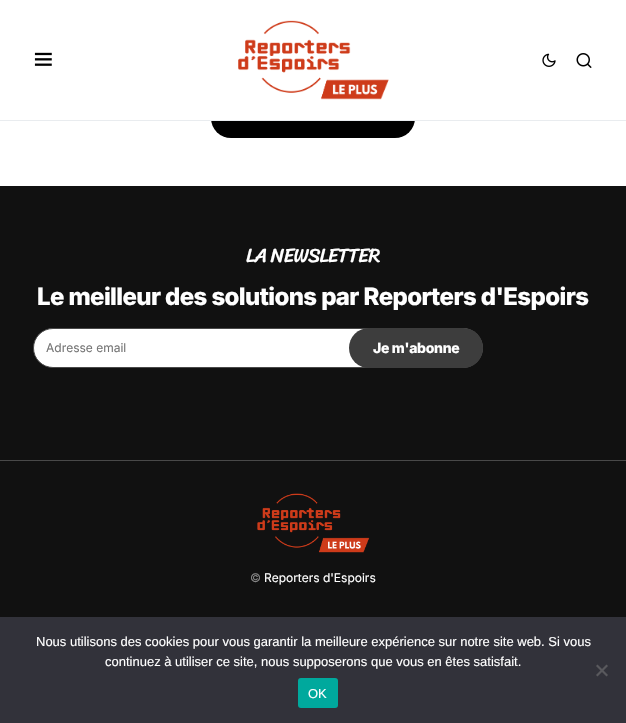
void draw(SkCanvas* canvas) {
    SkPaint paint;
    paint.setAntiAlias(true);
    auto spacedText = [&](const char* s, float x, float y, const SkFont& font, const SkPaint& ink, float letter, float word) {
        std::vector<SkGlyphID> glyphs(font.countText(s, strlen(s), SkTextEncoding::kUTF8));
        std::vector<float> xs(glyphs.size());
        font.textToGlyphs(s, strlen(s), SkTextEncoding::kUTF8, glyphs);
        font.getXPos(glyphs, xs, x);
        float extra = 0;
        for (size_t i = 0; i < glyphs.size(); i++) {
            xs[i] += extra;
            extra += letter + word * (glyphs[i] == font.unicharToGlyph(' '));
        }
        canvas->drawTextBlob(SkTextBlob::MakeFromPosHGlyphs(glyphs, xs, y, font), 0, 0, ink);
    };
    canvas->clear(0xFFFFFFFF);
    paint.setColor(0xFF000000);
    canvas->drawRoundRect(SkRect::MakeXYWH(211, 98, 204, 40), 20, 20, paint);
    paint.setColor(0xFFFFFFFF);
    canvas->drawRect(SkRect::MakeXYWH(211, 98, 204, 22), paint);
    paint.setColor(0xFFE9ECEF);
    canvas->drawRect(SkRect::MakeXYWH(0, 120, 626, 1), paint);
    canvas->drawImageRect(SkImages::DeferredFromEncodedData(SkData::MakeFromFileName("img1.png")), SkRect::MakeXYWH(34, 52, 18, 14), SkSamplingOptions());
    canvas->drawImageRect(SkImages::DeferredFromEncodedData(SkData::MakeFromFileName("img2.png")), SkRect::MakeXYWH(238, 20, 151, 80), SkSamplingOptions());
    canvas->drawImageRect(SkImages::DeferredFromEncodedData(SkData::MakeFromFileName("img3.png")), SkRect::MakeXYWH(542, 53, 14, 14), SkSamplingOptions());
    canvas->drawImageRect(SkImages::DeferredFromEncodedData(SkData::MakeFromFileName("img4.png")), SkRect::MakeXYWH(576, 53, 16, 15), SkSamplingOptions());
    paint.setColor(0xFF111111);
    canvas->drawRect(SkRect::MakeXYWH(0, 186, 626, 431), paint);
    paint.setColor(0xFF494949);
    canvas->drawRect(SkRect::MakeXYWH(0, 460, 626, 1), paint);
    SkFont font1(fontMgr->matchFamilyStyle("Sriracha", SkFontStyle::Normal()), 20);
    font1.setSubpixel(true);
    paint.setColor(0xFFFFFFFF);
    spacedText("LA NEWSLETTER", 246, 262, font1, paint, -1, 0);
    SkFont font2(fontMgr->matchFamilyStyle("Inter", SkFontStyle(800, SkFontStyle::kNormal_Width, SkFontStyle::kUpright_Slant)), 24);
    font2.setSubpixel(true);
    spacedText("Le meilleur des solutions par Reporters d'Espoirs", 37, 305, font2, paint, -0.6f, 0);
    canvas->drawRoundRect(SkRect::MakeXYWH(33.5f, 328.5f, 449, 39), 19.5f, 19.5f, paint);
    paint.setStyle(SkPaint::kStroke_Style);
    paint.setStrokeWidth(1);
    paint.setColor(0xFF494949);
    canvas->drawRoundRect(SkRect::MakeXYWH(33.5f, 328.5f, 449, 39), 19.5f, 19.5f, paint);
    SkFont font3(fontMgr->matchFamilyStyle("Inter", SkFontStyle::Normal()), 12);
    font3.setSubpixel(true);
    paint.setStyle(SkPaint::kFill_Style);
    paint.setColor(0xFF757575);
    canvas->drawString("Adresse email", 46, 352, font3, paint);
    paint.setColor(0xFF3D3D3D);
    canvas->drawRoundRect(SkRect::MakeXYWH(349, 328, 134, 40), 20, 20, paint);
    SkFont font4(fontMgr->matchFamilyStyle("Inter", SkFontStyle(800, SkFontStyle::kNormal_Width, SkFontStyle::kUpright_Slant)), 14);
    font4.setSubpixel(true);
    paint.setColor(0xFFFFFFFF);
    spacedText("Je m'abonne", 373, 353, font4, paint, -0.3f, 0);
    canvas->drawImageRect(SkImages::DeferredFromEncodedData(SkData::MakeFromFileName("img5.png")), SkRect::MakeXYWH(257, 493, 113, 60), SkSamplingOptions());
    paint.setColor(0xFF858585);
    canvas->drawString("©", 250, 582, font3, paint);
    paint.setColor(0xFFFFFFFF);
    canvas->drawString("Reporters d'Espoirs", 264, 582, font3, paint);
    paint.setColor(0xFF32323A);
    canvas->drawRect(SkRect::MakeXYWH(0, 617, 626, 106), paint);
    SkFont font5(fontMgr->matchFamilyStyle("Liberation Sans", SkFontStyle::Normal()), 13);
    font5.setSubpixel(true);
    paint.setColor(0xFFFFFFFF);
    canvas->drawString("Nous utilisons des cookies pour vous garantir la meilleure expérience sur notre site web. Si vous", 36, 646, font5, paint);
    canvas->drawString("continuez à utiliser ce site, nous supposerons que vous en êtes satisfait.", 105, 666, font5, paint);
    paint.setColor(0xFF59595D);
    canvas->drawPath(SkPathBuilder().moveTo(606.5f, 664.5f).lineTo(608, 666).lineTo(597.5f, 676.5f).lineTo(596, 675).close().detach(), paint);
    canvas->drawPath(SkPathBuilder().moveTo(596, 666).lineTo(597.5f, 664.5f).lineTo(608, 675).lineTo(606.5f, 676.5f).close().detach(), paint);
    paint.setColor(0xFF00A99D);
    canvas->drawRoundRect(SkRect::MakeXYWH(298, 678, 40, 30), 3, 3, paint);
    paint.setColor(0xFFFFFFFF);
    canvas->drawString("OK", 308, 698, font5, paint);
}
